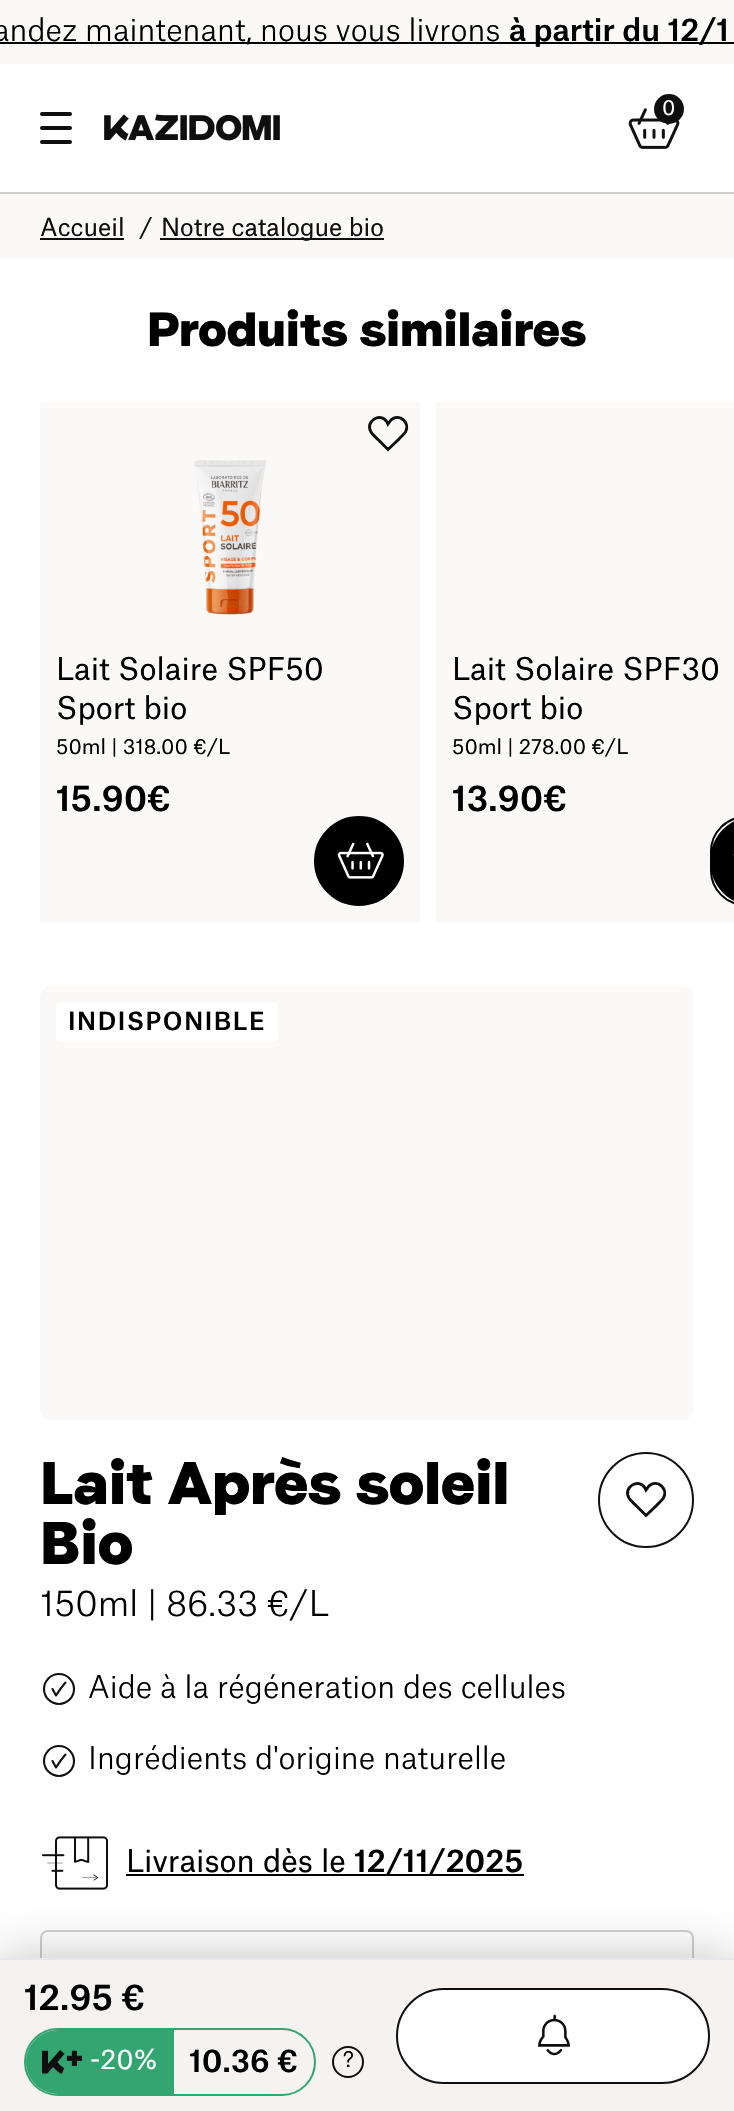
void draw(SkCanvas* canvas) {
    SkPaint paint;
    paint.setAntiAlias(true);
    auto spacedText = [&](const char* s, float x, float y, const SkFont& font, const SkPaint& ink, float letter, float word) {
        std::vector<SkGlyphID> glyphs(font.countText(s, strlen(s), SkTextEncoding::kUTF8));
        std::vector<float> xs(glyphs.size());
        font.textToGlyphs(s, strlen(s), SkTextEncoding::kUTF8, glyphs);
        font.getXPos(glyphs, xs, x);
        float extra = 0;
        for (size_t i = 0; i < glyphs.size(); i++) {
            xs[i] += extra;
            extra += letter + word * (glyphs[i] == font.unicharToGlyph(' '));
        }
        canvas->drawTextBlob(SkTextBlob::MakeFromPosHGlyphs(glyphs, xs, y, font), 0, 0, ink);
    };
    canvas->clear(0xFFFFFFFF);
    paint.setColor(0xFFFAF9F8);
    canvas->drawRect(SkRect::MakeXYWH(0, 0, 734, 64), paint);
    paint.setColor(0xFF000000);
    canvas->drawRect(SkRect::MakeXYWH(0, 42, 734, 2), paint);
    SkFont font1(fontMgr->matchFamilyStyle("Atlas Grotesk", SkFontStyle(300, SkFontStyle::kNormal_Width, SkFontStyle::kUpright_Slant)), 30);
    font1.setSubpixel(true);
    canvas->drawString("andez maintenant, nous vous livrons", -7, 41, font1, paint);
    SkFont font2(fontMgr->matchFamilyStyle("Atlas Grotesk", SkFontStyle(500, SkFontStyle::kNormal_Width, SkFontStyle::kUpright_Slant)), 30);
    font2.setSubpixel(true);
    canvas->drawString("à partir du 12/1", 509, 41, font2, paint);
    paint.setColor(0xFFCFCFCF);
    canvas->drawRect(SkRect::MakeXYWH(0, 192, 734, 2), paint);
    canvas->drawImageRect(SkImages::DeferredFromEncodedData(SkData::MakeFromFileName("img1.png")), SkRect::MakeXYWH(628, 108, 52, 41), SkSamplingOptions());
    paint.setColor(0xFF0F0F0F);
    canvas->drawCircle(669, 109, 15, paint);
    SkFont font3(fontMgr->matchFamilyStyle("Atlas Grotesk", SkFontStyle::Normal()), 20);
    font3.setSubpixel(true);
    paint.setColor(0xFFFFFFFF);
    canvas->drawString("0", 662, 115, font3, paint);
    paint.setColor(0xFF0F0F0F);
    canvas->drawRoundRect(SkRect::MakeXYWH(40, 112, 32, 4), 2, 2, paint);
    canvas->drawRoundRect(SkRect::MakeXYWH(40, 126, 32, 4), 2, 2, paint);
    canvas->drawRoundRect(SkRect::MakeXYWH(40, 140, 32, 4), 2, 2, paint);
    canvas->drawImageRect(SkImages::DeferredFromEncodedData(SkData::MakeFromFileName("img2.png")), SkRect::MakeXYWH(104, 114, 176, 27), SkSamplingOptions());
    paint.setColor(0xFFFAF9F8);
    canvas->drawRect(SkRect::MakeXYWH(0, 194, 734, 64), paint);
    SkFont font4(fontMgr->matchFamilyStyle("Atlas Grotesk", SkFontStyle::Normal()), 24);
    font4.setSubpixel(true);
    paint.setColor(0xFF0F0F0F);
    canvas->drawString("Accueil", 40, 236, font4, paint);
    canvas->drawRect(SkRect::MakeXYWH(40, 238, 84, 2), paint);
    canvas->drawString("/", 139, 236, font4, paint);
    canvas->drawRect(SkRect::MakeXYWH(160, 238, 224, 2), paint);
    canvas->drawString("Notre catalogue bio", 161, 236, font4, paint);
    SkFont font5(fontMgr->matchFamilyStyle("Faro", SkFontStyle(800, SkFontStyle::kNormal_Width, SkFontStyle::kUpright_Slant)), 48);
    font5.setSubpixel(true);
    paint.setColor(0xFF000000);
    canvas->drawString("Produits similaires", 147, 346, font5, paint);
    paint.setColor(0xFFFAF9F8);
    canvas->drawRect(SkRect::MakeXYWH(40, 402, 380, 520), paint);
    paint.setStyle(SkPaint::kStroke_Style);
    paint.setStrokeWidth(2.9f);
    paint.setColor(0xFF0F0F0F);
    canvas->drawPath(SkPathBuilder().moveTo(387, 422).lineTo(388, 424).cubicTo(389, 422.5f, 390, 421, 391.5f, 419.5f).cubicTo(399.5f, 413, 410.5f, 423, 405.5f, 432).cubicTo(403.5f, 435, 400.5f, 437, 398.5f, 439.5f).lineTo(388, 449.5f).lineTo(378, 439.5f).cubicTo(375.5f, 437, 372.5f, 435, 371, 432).cubicTo(364.5f, 421.5f, 380.5f, 411.5f, 387, 422).close().detach(), paint);
    canvas->drawImageRect(SkImages::DeferredFromEncodedData(SkData::MakeFromFileName("img3.png")), SkRect::MakeXYWH(194, 460, 72, 155), SkSamplingOptions());
    SkFont font6(fontMgr->matchFamilyStyle("Atlas Grotesk", SkFontStyle::Normal()), 30);
    font6.setSubpixel(true);
    paint.setStyle(SkPaint::kFill_Style);
    paint.setColor(0xFF000000);
    canvas->drawString("Lait Solaire SPF50", 56, 680, font6, paint);
    canvas->drawString("Sport bio", 56, 719, font6, paint);
    canvas->drawString("50ml | 318.00 €/L", 56, 754, font3, paint);
    SkFont font7(fontMgr->matchFamilyStyle("Atlas Grotesk", SkFontStyle(500, SkFontStyle::kNormal_Width, SkFontStyle::kUpright_Slant)), 34);
    font7.setSubpixel(true);
    canvas->drawString("15.90€", 56, 811, font7, paint);
    canvas->drawCircle(359, 861, 44, paint);
    paint.setStyle(SkPaint::kStroke_Style);
    paint.setStrokeWidth(2);
    canvas->drawCircle(359, 861, 44, paint);
    canvas->drawImageRect(SkImages::DeferredFromEncodedData(SkData::MakeFromFileName("img4.png")), SkRect::MakeXYWH(337, 842, 47, 37), SkSamplingOptions());
    paint.setStyle(SkPaint::kFill_Style);
    paint.setColor(0xFFFAF9F8);
    canvas->drawRect(SkRect::MakeXYWH(436, 402, 298, 520), paint);
    paint.setColor(0xFF000000);
    canvas->drawString("Lait Solaire SPF30", 452, 680, font6, paint);
    canvas->drawString("Sport bio", 452, 719, font6, paint);
    canvas->drawString("50ml | 278.00 €/L", 452, 754, font3, paint);
    canvas->drawString("13.90€", 452, 811, font7, paint);
    canvas->drawPath(SkPathBuilder().moveTo(755, 816).lineTo(734, 816).lineTo(734, 906).lineTo(755, 906).cubicTo(730, 906, 710, 886, 710, 861).cubicTo(710, 836, 730, 816, 755, 816).close().detach(), paint);
    paint.setStyle(SkPaint::kStroke_Style);
    canvas->drawRoundRect(SkRect::MakeXYWH(711, 817, 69, 88), 44, 44, paint);
    canvas->drawImageRect(SkImages::DeferredFromEncodedData(SkData::MakeFromFileName("img5.png")), SkRect::MakeXYWH(733, 854, 1, 2), SkSamplingOptions());
    paint.setStyle(SkPaint::kFill_Style);
    paint.setColor(0xFFFAF9F8);
    canvas->drawRoundRect(SkRect::MakeXYWH(40, 986, 654, 434), 12, 12, paint);
    paint.setColor(0xFFFFFFFF);
    canvas->drawRoundRect(SkRect::MakeXYWH(56, 1002, 222, 40), 4, 4, paint);
    SkFont font8(fontMgr->matchFamilyStyle("Atlas Grotesk", SkFontStyle(500, SkFontStyle::kNormal_Width, SkFontStyle::kUpright_Slant)), 24);
    font8.setSubpixel(true);
    paint.setColor(0xFF000000);
    spacedText("INDISPONIBLE", 68, 1030, font8, paint, 1.6f, 0);
    SkFont font9(fontMgr->matchFamilyStyle("Faro", SkFontStyle(800, SkFontStyle::kNormal_Width, SkFontStyle::kUpright_Slant)), 60);
    font9.setSubpixel(true);
    canvas->drawString("Lait Après soleil", 40, 1504, font9, paint);
    canvas->drawString("Bio", 40, 1564, font9, paint);
    paint.setStyle(SkPaint::kStroke_Style);
    paint.setColor(0xFF0F0F0F);
    canvas->drawCircle(646, 1500, 47, paint);
    paint.setStrokeWidth(2.9f);
    canvas->drawPath(SkPathBuilder().moveTo(645, 1488).lineTo(646, 1490).cubicTo(647, 1488.5f, 648, 1487, 649.5f, 1485.5f).cubicTo(657.5f, 1479, 668.5f, 1489, 663.5f, 1498).cubicTo(661.5f, 1501, 658.5f, 1503, 656.5f, 1505.5f).lineTo(646, 1515.5f).lineTo(636, 1505.5f).cubicTo(633.5f, 1503, 630.5f, 1501, 629, 1498).cubicTo(622.5f, 1487.5f, 638.5f, 1477.5f, 645, 1488).close().detach(), paint);
    SkFont font10(fontMgr->matchFamilyStyle("Atlas Grotesk", SkFontStyle(300, SkFontStyle::kNormal_Width, SkFontStyle::kUpright_Slant)), 34);
    font10.setSubpixel(true);
    paint.setStyle(SkPaint::kFill_Style);
    paint.setColor(0xFF000000);
    canvas->drawString("150ml | 86.33 €/L", 40, 1616, font10, paint);
    paint.setStyle(SkPaint::kStroke_Style);
    paint.setStrokeWidth(2.1f);
    paint.setColor(0xFF0F0F0F);
    canvas->drawCircle(59, 1689, 15, paint);
    paint.setStrokeCap(SkPaint::kRound_Cap);
    paint.setStrokeJoin(SkPaint::kRound_Join);
    canvas->drawPath(SkPathBuilder().moveTo(52.5f, 1689).lineTo(56, 1695.5f).cubicTo(57.5f, 1693, 61.5f, 1687, 65.5f, 1682.5f).detach(), paint);
    paint.setStyle(SkPaint::kFill_Style);
    paint.setColor(0xFF000000);
    canvas->drawString("Aide à la régéneration des cellules", 88, 1698, font1, paint);
    paint.setStyle(SkPaint::kStroke_Style);
    paint.setStrokeCap(SkPaint::kButt_Cap);
    paint.setStrokeJoin(SkPaint::kMiter_Join);
    paint.setColor(0xFF0F0F0F);
    canvas->drawCircle(59, 1761, 15, paint);
    paint.setStrokeCap(SkPaint::kRound_Cap);
    paint.setStrokeJoin(SkPaint::kRound_Join);
    canvas->drawPath(SkPathBuilder().moveTo(52.5f, 1761).lineTo(56, 1767.5f).cubicTo(57.5f, 1765, 61.5f, 1759, 65.5f, 1754.5f).detach(), paint);
    paint.setStyle(SkPaint::kFill_Style);
    paint.setColor(0xFF000000);
    canvas->drawString("Ingrédients d'origine naturelle", 88, 1769, font1, paint);
    canvas->drawImageRect(SkImages::DeferredFromEncodedData(SkData::MakeFromFileName("img6.png")), SkRect::MakeXYWH(42, 1836, 66, 54), SkSamplingOptions());
    canvas->drawString("Livraison dès le", 126, 1872, font6, paint);
    canvas->drawRect(SkRect::MakeXYWH(126, 1874, 398, 2), paint);
    canvas->drawString("12/11/2025", 354, 1872, font2, paint);
    paint.setStyle(SkPaint::kStroke_Style);
    paint.setStrokeWidth(2);
    paint.setStrokeCap(SkPaint::kButt_Cap);
    paint.setStrokeJoin(SkPaint::kMiter_Join);
    paint.setColor(0xFFCFCFCF);
    canvas->drawRoundRect(SkRect::MakeXYWH(41, 1931, 652, 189), 7, 7, paint);
    paint.setStyle(SkPaint::kFill_Style);
    paint.setColor(0x3D000000);
    paint.setMaskFilter(SkMaskFilter::MakeBlur(kNormal_SkBlurStyle, 24));
    canvas->drawRect(SkRect::MakeXYWH(0, 1958, 734, 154), paint);
    paint.setMaskFilter(nullptr);
    paint.setColor(0xFFF5F2EF);
    canvas->drawRect(SkRect::MakeXYWH(0, 1960, 734, 151), paint);
    paint.setColor(0xFFE5E7EB);
    canvas->drawRect(SkRect::MakeXYWH(0, 1958, 734, 2), paint);
    paint.setColor(0xFF000000);
    canvas->drawString("12.95 €", 24, 2010, font7, paint);
    paint.setStyle(SkPaint::kStroke_Style);
    paint.setColor(0xFF33A571);
    canvas->drawRoundRect(SkRect::MakeXYWH(25, 2029, 290, 66), 33, 33, paint);
    paint.setStyle(SkPaint::kFill_Style);
    canvas->drawPath(SkPathBuilder().moveTo(58, 2030).lineTo(174, 2030).lineTo(174, 2094).lineTo(58, 2094).cubicTo(40.5f, 2094, 26, 2079.5f, 26, 2062).cubicTo(26, 2044.5f, 40.5f, 2030, 58, 2030).close().detach(), paint);
    canvas->drawImageRect(SkImages::DeferredFromEncodedData(SkData::MakeFromFileName("img7.png")), SkRect::MakeXYWH(42, 2050, 40, 24), SkSamplingOptions());
    SkFont font11(fontMgr->matchFamilyStyle("Atlas Grotesk", SkFontStyle::Normal()), 26);
    font11.setSubpixel(true);
    paint.setColor(0xFFFFFFFF);
    canvas->drawString("-20%", 90, 2069, font11, paint);
    paint.setColor(0xFF000000);
    canvas->drawString("10.36 €", 189, 2072, font2, paint);
    paint.setStyle(SkPaint::kStroke_Style);
    paint.setColor(0xFF0F0F0F);
    canvas->drawCircle(348, 2062, 15, paint);
    paint.setStyle(SkPaint::kFill_Style);
    paint.setColor(0xFF000000);
    canvas->drawString("?", 343, 2067, font3, paint);
    paint.setColor(0xFFFFFFFF);
    canvas->drawRoundRect(SkRect::MakeXYWH(397, 1989, 312, 94), 47, 47, paint);
    paint.setStyle(SkPaint::kStroke_Style);
    paint.setColor(0xFF0F0F0F);
    canvas->drawRoundRect(SkRect::MakeXYWH(397, 1989, 312, 94), 47, 47, paint);
    canvas->drawImageRect(SkImages::DeferredFromEncodedData(SkData::MakeFromFileName("img8.png")), SkRect::MakeXYWH(538, 2014, 32, 42), SkSamplingOptions());
}
